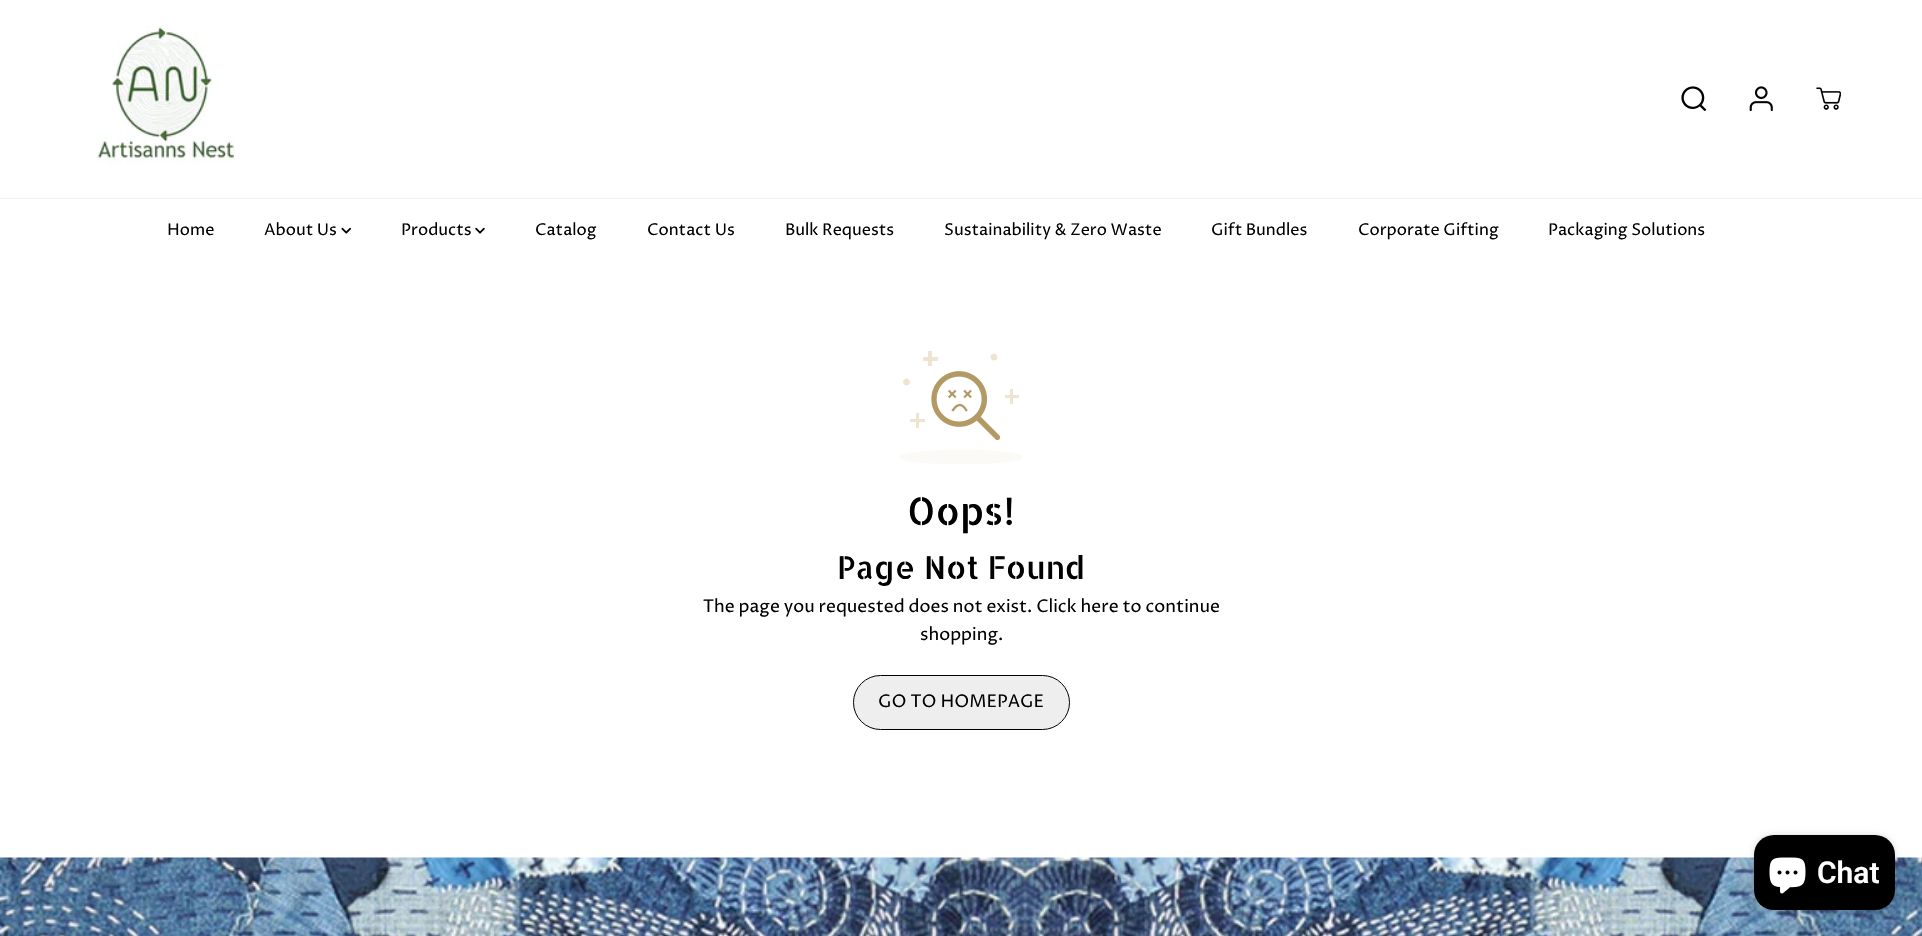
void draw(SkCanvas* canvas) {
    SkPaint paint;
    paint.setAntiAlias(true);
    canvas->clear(0xFFFFFFFF);
    canvas->drawImageRect(SkImages::DeferredFromEncodedData(SkData::MakeFromFileName("img1.png")), SkRect::MakeXYWH(96, 25, 140, 139), SkSamplingOptions());
    canvas->drawImageRect(SkImages::DeferredFromEncodedData(SkData::MakeFromFileName("img2.png")), SkRect::MakeXYWH(1681, 86, 25, 25), SkSamplingOptions());
    canvas->drawImageRect(SkImages::DeferredFromEncodedData(SkData::MakeFromFileName("img3.png")), SkRect::MakeXYWH(1749, 86, 24, 25), SkSamplingOptions());
    canvas->drawImageRect(SkImages::DeferredFromEncodedData(SkData::MakeFromFileName("img4.png")), SkRect::MakeXYWH(1816, 87, 25, 23), SkSamplingOptions());
    paint.setColor(0xFFF1F1F1);
    canvas->drawRect(SkRect::MakeXYWH(0, 198, 1922, 1), paint);
    SkFont font1(fontMgr->matchFamilyStyle("Proza Libre", SkFontStyle::Normal()), 16.25f);
    font1.setSubpixel(true);
    paint.setColor(0xFF000000);
    canvas->drawString("Home", 167, 235, font1, paint);
    canvas->drawString("About Us", 264, 235, font1, paint);
    canvas->drawImageRect(SkImages::DeferredFromEncodedData(SkData::MakeFromFileName("img5.png")), SkRect::MakeXYWH(341, 227, 10, 7), SkSamplingOptions());
    canvas->drawString("Products", 401, 235, font1, paint);
    canvas->drawImageRect(SkImages::DeferredFromEncodedData(SkData::MakeFromFileName("img6.png")), SkRect::MakeXYWH(475, 227, 10, 7), SkSamplingOptions());
    canvas->drawString("Catalog", 535, 235, font1, paint);
    canvas->drawString("Contact Us", 647, 235, font1, paint);
    canvas->drawString("Bulk Requests", 785, 235, font1, paint);
    canvas->drawString("Sustainability & Zero Waste", 944, 235, font1, paint);
    canvas->drawString("Gift Bundles", 1211, 235, font1, paint);
    canvas->drawString("Corporate Gifting", 1358, 235, font1, paint);
    canvas->drawString("Packaging Solutions", 1548, 235, font1, paint);
    canvas->drawImageRect(SkImages::DeferredFromEncodedData(SkData::MakeFromFileName("img7.png")), SkRect::MakeXYWH(899, 351, 124, 113), SkSamplingOptions());
    SkFont font2(fontMgr->matchFamilyStyle("Allerta Stencil", SkFontStyle::Normal()), 38);
    font2.setSubpixel(true);
    canvas->drawString("Oops!", 907, 525, font2, paint);
    SkFont font3(fontMgr->matchFamilyStyle("Allerta Stencil", SkFontStyle::Normal()), 31.5f);
    font3.setSubpixel(true);
    canvas->drawString("Page Not Found", 837, 579, font3, paint);
    SkFont font4(fontMgr->matchFamilyStyle("Proza Libre", SkFontStyle::Normal()), 17.5f);
    font4.setSubpixel(true);
    canvas->drawString("The page you requested does not exist. Click here to continue", 703, 612, font4, paint);
    canvas->drawString("shopping.", 920, 640, font4, paint);
    paint.setColor(0xFFEEEEEE);
    canvas->drawRoundRect(SkRect::MakeXYWH(853.5f, 675.5f, 216, 54), 27, 27, paint);
    paint.setStyle(SkPaint::kStroke_Style);
    paint.setStrokeWidth(1);
    paint.setColor(0xFF000000);
    canvas->drawRoundRect(SkRect::MakeXYWH(853.5f, 675.5f, 216, 54), 27, 27, paint);
    paint.setStyle(SkPaint::kFill_Style);
    canvas->drawString("GO TO HOMEPAGE", 878, 707, font4, paint);
    canvas->drawImageRect(SkImages::DeferredFromEncodedData(SkData::MakeFromFileName("img8.png")), SkRect::MakeXYWH(0, 857, 1922, 79), SkSamplingOptions());
    paint.setColor(0x26000000);
    paint.setMaskFilter(SkMaskFilter::MakeBlur(kNormal_SkBlurStyle, 3));
    canvas->drawRoundRect(SkRect::MakeXYWH(1754, 835, 141, 75), 20, 20, paint);
    paint.setMaskFilter(nullptr);
    paint.setColor(0xFF000000);
    canvas->drawRoundRect(SkRect::MakeXYWH(1754, 835, 141, 75), 20, 20, paint);
    canvas->drawImageRect(SkImages::DeferredFromEncodedData(SkData::MakeFromFileName("img9.png")), SkRect::MakeXYWH(1769, 857, 37, 37), SkSamplingOptions());
    SkFont font5(fontMgr->matchFamilyStyle("Roboto", SkFontStyle(600, SkFontStyle::kNormal_Width, SkFontStyle::kUpright_Slant)), 30);
    font5.setSubpixel(true);
    paint.setColor(0xFFFFFFFF);
    canvas->drawString("Chat", 1817, 883, font5, paint);
}
